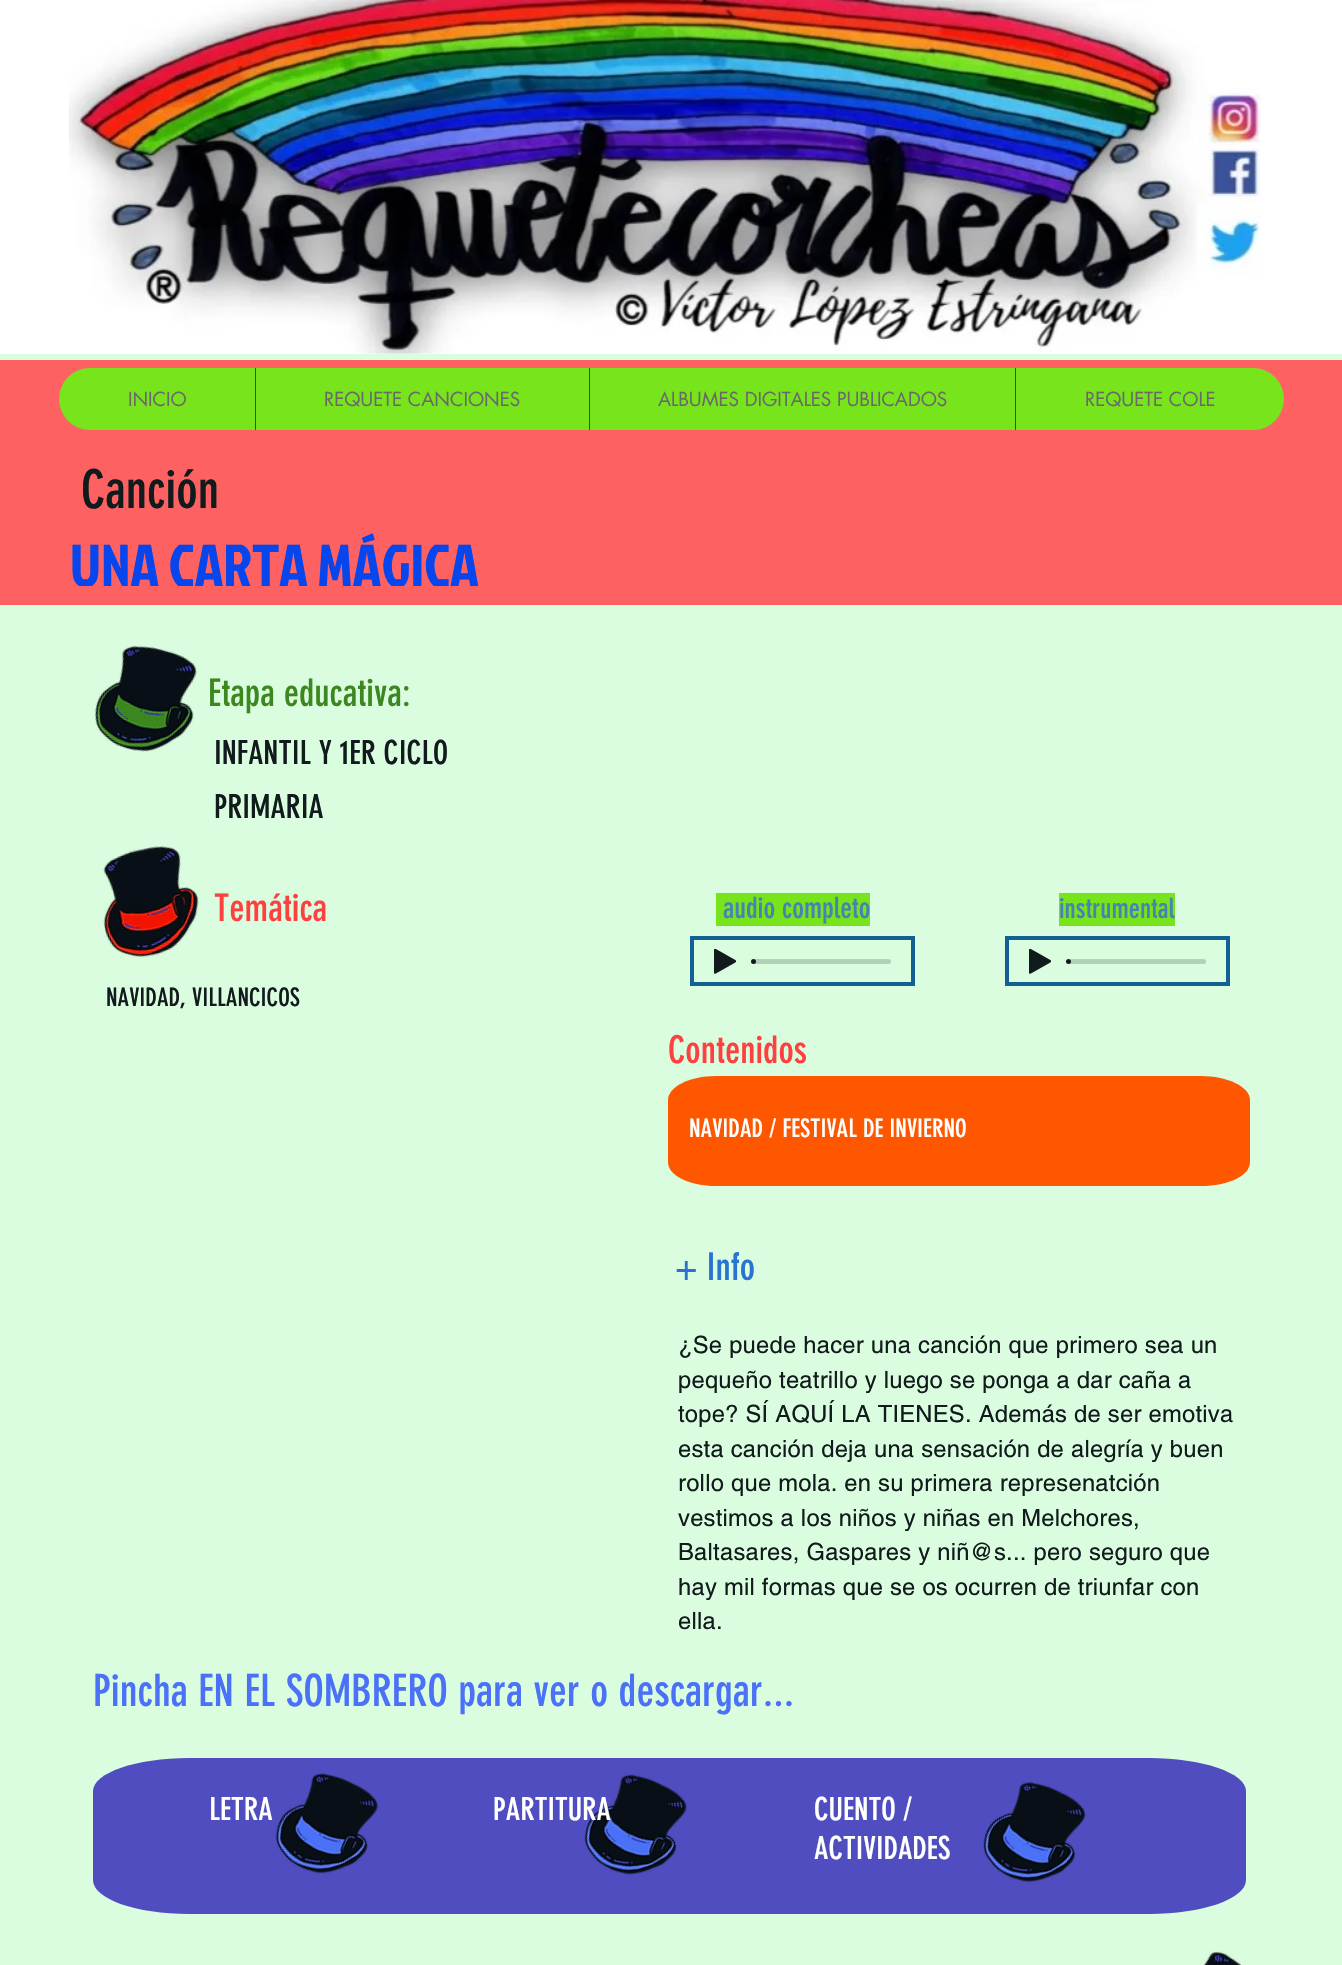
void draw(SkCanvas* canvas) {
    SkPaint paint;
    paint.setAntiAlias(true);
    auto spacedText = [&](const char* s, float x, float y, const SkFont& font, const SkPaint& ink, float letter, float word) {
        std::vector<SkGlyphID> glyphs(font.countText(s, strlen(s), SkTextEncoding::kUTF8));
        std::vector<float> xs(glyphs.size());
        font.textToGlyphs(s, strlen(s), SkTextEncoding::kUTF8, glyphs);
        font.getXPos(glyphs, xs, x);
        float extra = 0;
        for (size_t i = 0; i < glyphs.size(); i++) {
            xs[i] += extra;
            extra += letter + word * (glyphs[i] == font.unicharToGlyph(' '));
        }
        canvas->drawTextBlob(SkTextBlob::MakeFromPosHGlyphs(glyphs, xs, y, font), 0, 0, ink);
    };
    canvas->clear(0xFFDBFDDF);
    paint.setColor(0xFFFFFFFF);
    canvas->drawRect(SkRect::MakeXYWH(0, 0, 1342, 354), paint);
    canvas->drawImageRect(SkImages::DeferredFromEncodedData(SkData::MakeFromFileName("img1.png")), SkRect::MakeXYWH(68, 0, 1194, 354), SkSamplingOptions());
    paint.setColor(0xFFFE6161);
    canvas->drawRect(SkRect::MakeXYWH(0, 360, 1342, 245), paint);
    paint.setColor(0xFF77E41C);
    canvas->drawRoundRect(SkRect::MakeXYWH(59, 368, 1225, 62), 31, 31, paint);
    SkFont font1(fontMgr->matchFamilyStyle("futura", SkFontStyle::Normal()), 18.75f);
    font1.setSubpixel(true);
    paint.setColor(0xFF696969);
    canvas->drawString("INICIO", 128, 406, font1, paint);
    paint.setColor(0xFF0746ED);
    canvas->drawRect(SkRect::MakeXYWH(255, 368, 1, 62), paint);
    paint.setColor(0xFF696969);
    canvas->drawString("REQUETE CANCIONES", 324, 406, font1, paint);
    paint.setColor(0xFF0746ED);
    canvas->drawRect(SkRect::MakeXYWH(589, 368, 1, 62), paint);
    paint.setColor(0xFF696969);
    canvas->drawString("ALBUMES DIGITALES PUBLICADOS", 658, 406, font1, paint);
    paint.setColor(0xFF0746ED);
    canvas->drawRect(SkRect::MakeXYWH(1015, 368, 1, 62), paint);
    paint.setColor(0xFF696969);
    canvas->drawString("REQUETE COLE", 1085, 406, font1, paint);
    SkFont font2(fontMgr->matchFamilyStyle("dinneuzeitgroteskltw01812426", SkFontStyle::Normal()), 52.5f);
    font2.setSubpixel(true);
    paint.setColor(0xFF111A1C);
    canvas->drawString("Canción", 81, 508, font2, paint);
    SkFont font3(fontMgr->matchFamilyStyle("Jockey One", SkFontStyle::Normal()), 58.75f);
    font3.setSubpixel(true);
    paint.setColor(0xFF0746ED);
    canvas->drawString("UNA CARTA MÁGICA", 70, 586, font3, paint);
    canvas->drawImageRect(SkImages::DeferredFromEncodedData(SkData::MakeFromFileName("img2.png")), SkRect::MakeXYWH(94, 645, 103, 107), SkSamplingOptions());
    SkFont font4(fontMgr->matchFamilyStyle("dinneuzeitgroteskltw01812426", SkFontStyle::Normal()), 37.5f);
    font4.setSubpixel(true);
    paint.setColor(0xFF3C871F);
    canvas->drawString("Etapa educativa:", 208, 706, font4, paint);
    SkFont font5(fontMgr->matchFamilyStyle("dinneuzeitgroteskltw01812426", SkFontStyle::Normal()), 32.5f);
    font5.setSubpixel(true);
    paint.setColor(0xFF111A1C);
    canvas->drawString("INFANTIL Y 1ER CICLO", 214, 764, font5, paint);
    canvas->drawString("PRIMARIA", 214, 818, font5, paint);
    canvas->drawImageRect(SkImages::DeferredFromEncodedData(SkData::MakeFromFileName("img3.png")), SkRect::MakeXYWH(103, 846, 96, 112), SkSamplingOptions());
    paint.setColor(0xFFFF4040);
    canvas->drawString("Temática", 214, 921, font4, paint);
    paint.setColor(0xFF77E41C);
    canvas->drawRect(SkRect::MakeXYWH(716, 893, 154, 33), paint);
    SkFont font6(fontMgr->matchFamilyStyle("dinneuzeitgroteskltw01812426", SkFontStyle::Normal()), 28.75f);
    font6.setSubpixel(true);
    paint.setColor(0xFF4682B4);
    canvas->drawString("audio completo", 723, 918, font6, paint);
    paint.setColor(0xFF77E41C);
    canvas->drawRect(SkRect::MakeXYWH(1059, 893, 116, 33), paint);
    SkFont font7(fontMgr->matchFamilyStyle("dinneuzeitgroteskltw01812426", SkFontStyle::Normal()), 27.5f);
    font7.setSubpixel(true);
    paint.setColor(0xFF4682B4);
    canvas->drawString("instrumental", 1059, 918, font7, paint);
    paint.setStyle(SkPaint::kStroke_Style);
    paint.setStrokeWidth(4);
    paint.setColor(0xFF136191);
    canvas->drawRect(SkRect::MakeXYWH(692, 938, 221, 46), paint);
    canvas->drawImageRect(SkImages::DeferredFromEncodedData(SkData::MakeFromFileName("img4.png")), SkRect::MakeXYWH(714, 949, 22, 25), SkSamplingOptions());
    paint.setStyle(SkPaint::kFill_Style);
    paint.setColor(0xFFB3D0B8);
    canvas->drawRoundRect(SkRect::MakeXYWH(754, 959, 137, 5), 2.5f, 2.5f, paint);
    paint.setColor(0xFF111A1C);
    canvas->drawCircle(753.5f, 961.5f, 2.5f, paint);
    paint.setStyle(SkPaint::kStroke_Style);
    paint.setColor(0xFF136191);
    canvas->drawRect(SkRect::MakeXYWH(1007, 938, 221, 46), paint);
    canvas->drawImageRect(SkImages::DeferredFromEncodedData(SkData::MakeFromFileName("img4.png")), SkRect::MakeXYWH(1029, 949, 22, 25), SkSamplingOptions());
    paint.setStyle(SkPaint::kFill_Style);
    paint.setColor(0xFFB3D0B8);
    canvas->drawRoundRect(SkRect::MakeXYWH(1069, 959, 137, 5), 2.5f, 2.5f, paint);
    paint.setColor(0xFF111A1C);
    canvas->drawCircle(1068.5f, 961.5f, 2.5f, paint);
    SkFont font8(fontMgr->matchFamilyStyle("dinneuzeitgroteskltw01812426", SkFontStyle::Normal()), 25);
    font8.setSubpixel(true);
    canvas->drawString("NAVIDAD, VILLANCICOS", 106, 1006, font8, paint);
    paint.setColor(0xFFFF4040);
    canvas->drawString("Contenidos", 668, 1063, font4, paint);
    paint.setColor(0xFFFF5700);
    canvas->drawPath(SkPathBuilder().moveTo(1201, 1186).lineTo(716, 1186).cubicTo(690, 1186, 668, 1176, 668, 1162).lineTo(668, 1100).cubicTo(668, 1087, 689, 1076, 716, 1076).lineTo(1201, 1076).cubicTo(1228, 1076, 1250, 1087, 1250, 1100).lineTo(1250, 1162).cubicTo(1250, 1176, 1228, 1186, 1201, 1186).close().detach(), paint);
    paint.setColor(0xFFFFFFFF);
    canvas->drawString("NAVIDAD / FESTIVAL DE INVIERNO", 689, 1137, font8, paint);
    paint.setColor(0xFF2973D3);
    canvas->drawString("+ Info", 675, 1280, font4, paint);
    SkFont font9(fontMgr->matchFamilyStyle("helvetica", SkFontStyle::Normal()), 23.75f);
    font9.setSubpixel(true);
    paint.setColor(0xFF111A1C);
    spacedText("¿Se puede hacer una canción que primero sea un", 678, 1353, font9, paint, 0.25f, 0);
    spacedText("pequeño teatrillo y luego se ponga a dar caña a", 678, 1388, font9, paint, 0.25f, 0);
    spacedText("tope? SÍ AQUÍ LA TIENES. Además de ser emotiva", 678, 1422, font9, paint, 0.25f, 0);
    spacedText("esta canción deja una sensación de alegría y buen", 678, 1457, font9, paint, 0.25f, 0);
    spacedText("rollo que mola. en su primera represenatción", 678, 1491, font9, paint, 0.25f, 0);
    spacedText("vestimos a los niños y niñas en Melchores,", 678, 1526, font9, paint, 0.25f, 0);
    spacedText("Baltasares, Gaspares y niñ@s... pero seguro que", 678, 1560, font9, paint, 0.25f, 0);
    spacedText("hay mil formas que se os ocurren de triunfar con", 678, 1595, font9, paint, 0.25f, 0);
    spacedText("ella.", 678, 1629, font9, paint, 0.25f, 0);
    SkFont font10(fontMgr->matchFamilyStyle("dinneuzeitgroteskltw01812426", SkFontStyle::Normal()), 43.75f);
    font10.setSubpixel(true);
    paint.setColor(0xFF4A71F7);
    canvas->drawString("Pincha EN EL SOMBRERO para ver o descargar...", 93, 1706, font10, paint);
    paint.setColor(0xFF4F4DC0);
    canvas->drawPath(SkPathBuilder().moveTo(1149, 1914).lineTo(189, 1914).cubicTo(136, 1914, 93, 1899, 93, 1880).lineTo(93, 1791).cubicTo(93, 1773, 136, 1758, 189, 1758).lineTo(1149, 1758).cubicTo(1202, 1758, 1246, 1773, 1246, 1791).lineTo(1246, 1880).cubicTo(1246, 1899, 1202, 1914, 1149, 1914).close().detach(), paint);
    SkFont font11(fontMgr->matchFamilyStyle("dinneuzeitgroteskltw01812426", SkFontStyle::Normal()), 31.25f);
    font11.setSubpixel(true);
    paint.setColor(0xFFFFFFFF);
    canvas->drawString("LETRA", 209, 1820, font11, paint);
    canvas->drawImageRect(SkImages::DeferredFromEncodedData(SkData::MakeFromFileName("img5.png")), SkRect::MakeXYWH(275, 1773, 104, 101), SkSamplingOptions());
    canvas->drawImageRect(SkImages::DeferredFromEncodedData(SkData::MakeFromFileName("img6.png")), SkRect::MakeXYWH(584, 1774, 103, 101), SkSamplingOptions());
    canvas->drawString("PARTITURA", 493, 1820, font11, paint);
    canvas->drawString("CUENTO /", 814, 1820, font11, paint);
    canvas->drawString("ACTIVIDADES", 814, 1859, font11, paint);
    canvas->drawImageRect(SkImages::DeferredFromEncodedData(SkData::MakeFromFileName("img7.png")), SkRect::MakeXYWH(983, 1781, 103, 102), SkSamplingOptions());
    canvas->drawImageRect(SkImages::DeferredFromEncodedData(SkData::MakeFromFileName("img8.png")), SkRect::MakeXYWH(1203, 1951, 38, 14), SkSamplingOptions());
}
